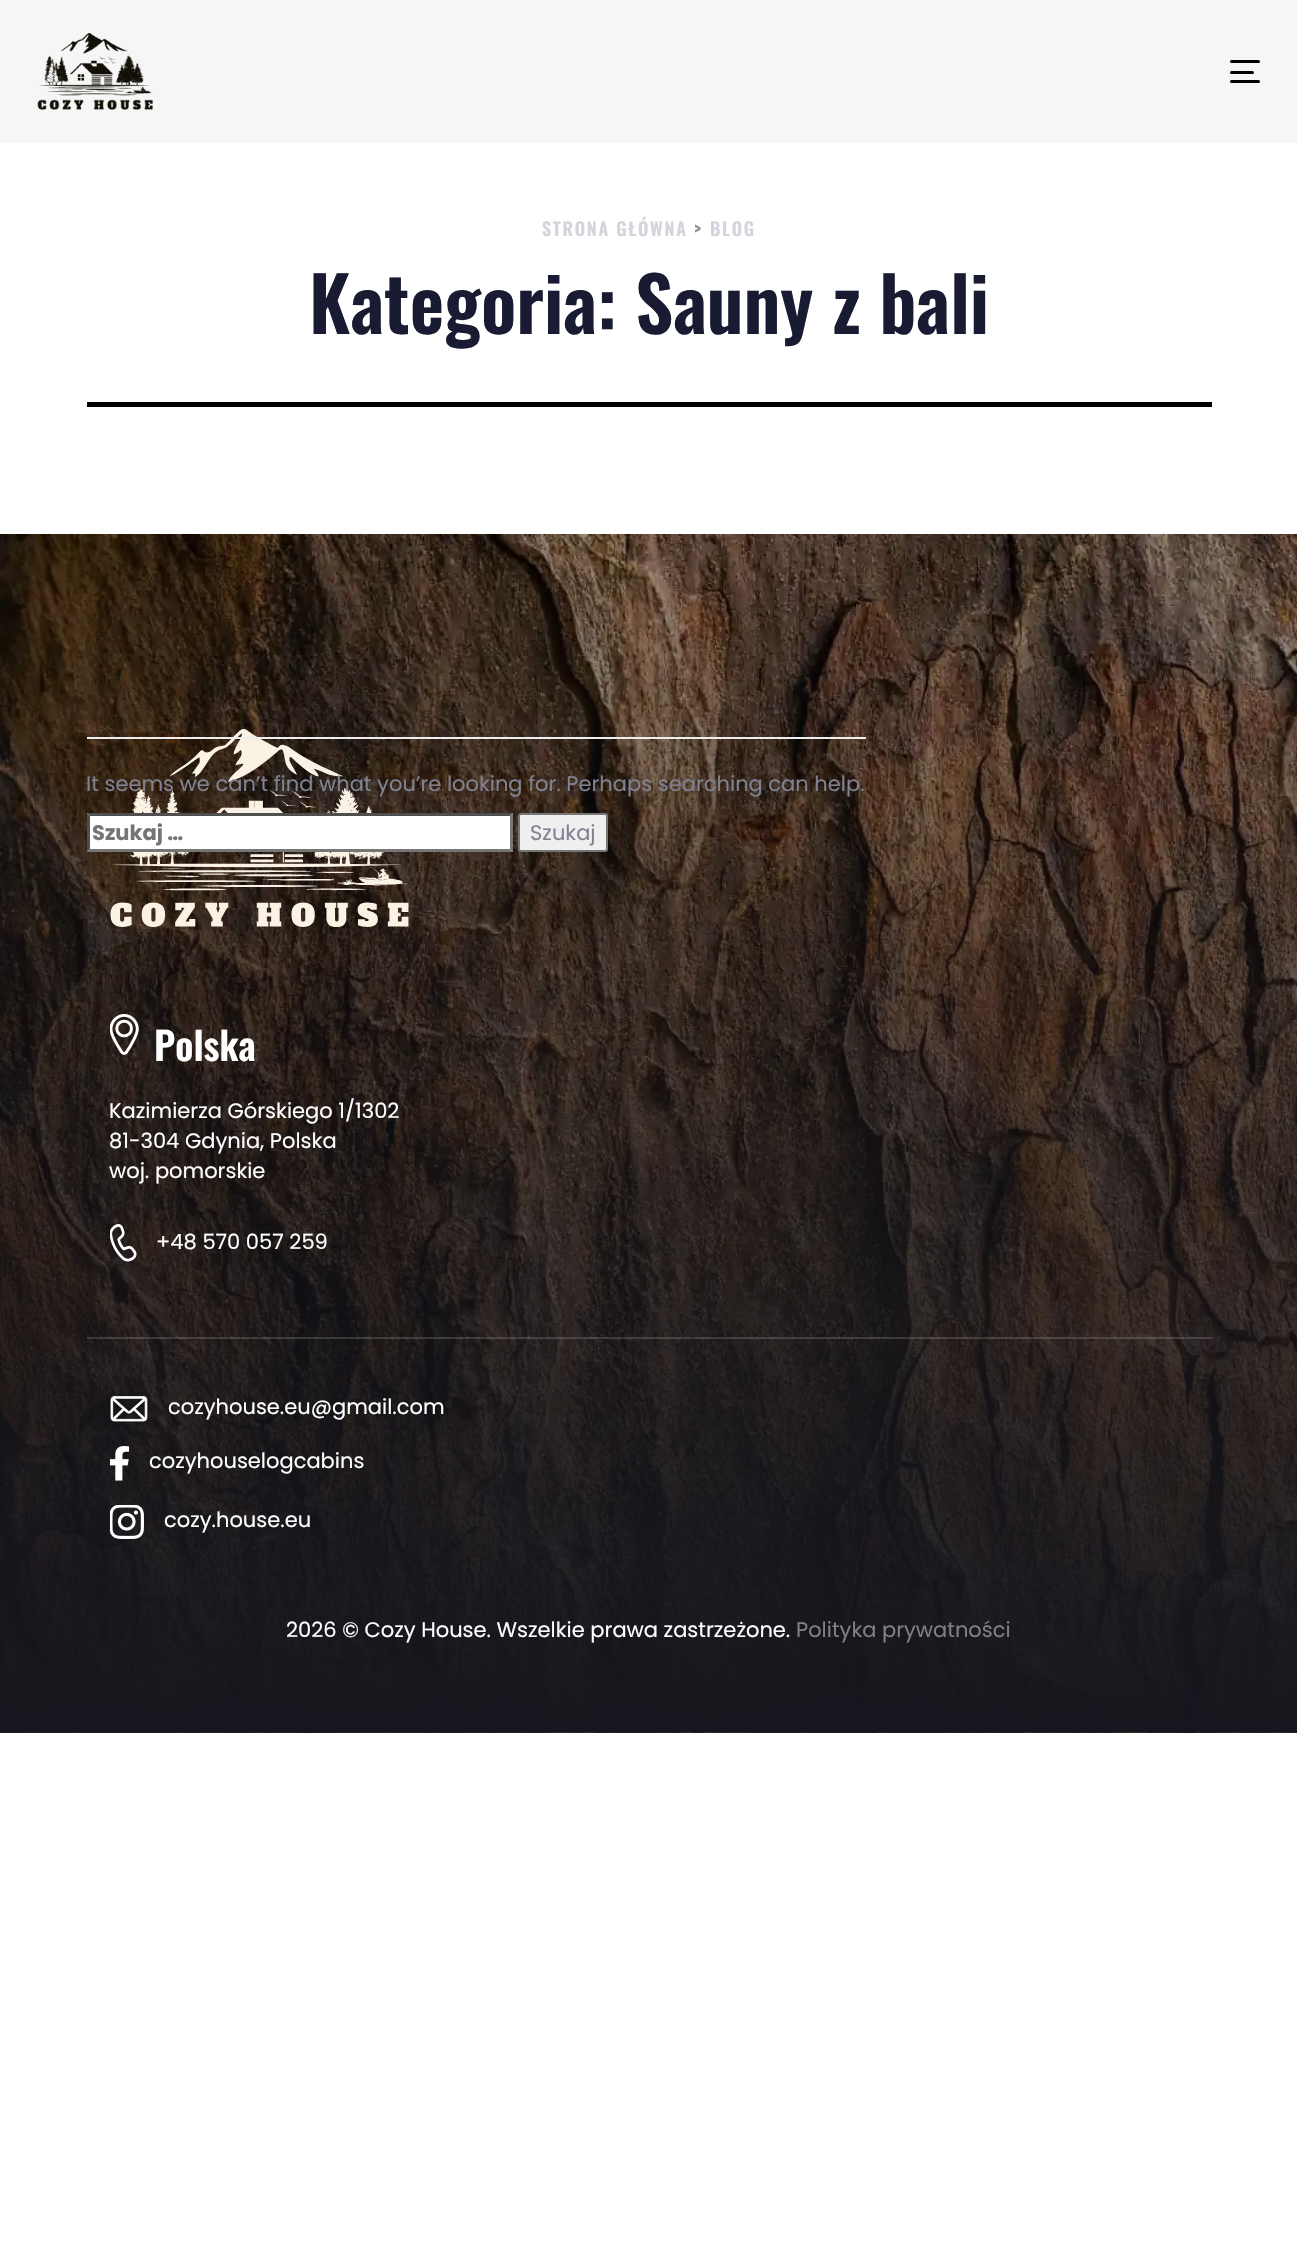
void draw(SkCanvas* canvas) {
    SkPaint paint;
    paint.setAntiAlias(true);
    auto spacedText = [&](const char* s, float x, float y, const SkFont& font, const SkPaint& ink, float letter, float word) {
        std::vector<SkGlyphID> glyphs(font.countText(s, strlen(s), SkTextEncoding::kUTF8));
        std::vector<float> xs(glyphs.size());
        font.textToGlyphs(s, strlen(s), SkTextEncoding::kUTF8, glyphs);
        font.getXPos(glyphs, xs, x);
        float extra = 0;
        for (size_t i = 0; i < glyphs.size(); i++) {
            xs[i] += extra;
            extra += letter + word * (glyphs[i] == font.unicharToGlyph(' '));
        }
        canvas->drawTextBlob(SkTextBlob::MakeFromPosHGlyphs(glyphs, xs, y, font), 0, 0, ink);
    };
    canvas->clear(0xFFFFFFFF);
    paint.setColor(0xFFF6F6F6);
    canvas->drawRect(SkRect::MakeXYWH(0, 0, 1297, 143), paint);
    canvas->drawImageRect(SkImages::DeferredFromEncodedData(SkData::MakeFromFileName("img1.png")), SkRect::MakeXYWH(37, 33, 116, 77), SkSamplingOptions());
    paint.setColor(0xFF000000);
    canvas->drawRoundRect(SkRect::MakeXYWH(1230, 60, 30, 3), 1.5f, 1.5f, paint);
    canvas->drawRoundRect(SkRect::MakeXYWH(1230, 71, 24, 3), 1.5f, 1.5f, paint);
    canvas->drawRoundRect(SkRect::MakeXYWH(1230, 80, 30, 3), 1.5f, 1.5f, paint);
    SkFont font1(fontMgr->matchFamilyStyle("Oswald", SkFontStyle(600, SkFontStyle::kNormal_Width, SkFontStyle::kUpright_Slant)), 18);
    font1.setSubpixel(true);
    paint.setColor(0xFFD3D4DC);
    spacedText("STRONA GŁÓWNA", 542, 236, font1, paint, 1.75f, 0);
    paint.setColor(0xFF8C8D98);
    spacedText(">", 694, 236, font1, paint, 1.75f, 0);
    paint.setColor(0xFFD3D4DC);
    spacedText("BLOG", 710, 236, font1, paint, 1.75f, 0);
    SkFont font2(fontMgr->matchFamilyStyle("Oswald", SkFontStyle(600, SkFontStyle::kNormal_Width, SkFontStyle::kUpright_Slant)), 75);
    font2.setSubpixel(true);
    paint.setColor(0xFF181B31);
    canvas->drawString("Kategoria: Sauny z bali", 309, 334, font2, paint);
    paint.setColor(0xFF000000);
    canvas->drawRect(SkRect::MakeXYWH(87, 402, 1125, 5), paint);
    paint.setColor(0xFF221611);
    canvas->drawRect(SkRect::MakeXYWH(0, 1732, 1297, 1), paint);
    canvas->drawImageRect(SkImages::DeferredFromEncodedData(SkData::MakeFromFileName("img2.png")), SkRect::MakeXYWH(0, 534, 1297, 1199), SkSamplingOptions());
    canvas->drawImageRect(SkImages::DeferredFromEncodedData(SkData::MakeFromFileName("img3.png")), SkRect::MakeXYWH(110, 729, 299, 198), SkSamplingOptions());
    paint.setColor(0xFFEEEEEE);
    canvas->drawRect(SkRect::MakeXYWH(87, 737, 779, 2), paint);
    SkFont font3(fontMgr->matchFamilyStyle("Poppins", SkFontStyle::Normal()), 21);
    font3.setSubpixel(true);
    paint.setColor(0xFF808291);
    canvas->drawString("It seems we can’t find what you’re looking for. Perhaps searching can help.", 86, 791, font3, paint);
    paint.setColor(0xFFFFFFFF);
    canvas->drawRect(SkRect::MakeXYWH(87, 813, 426, 39), paint);
    paint.setColor(0xFF4F4F4F);
    canvas->drawPath(SkPathBuilder().moveTo(87, 813).lineTo(513, 813).lineTo(510, 816).lineTo(90, 816).close().detach(), paint);
    paint.setColor(0xFF767676);
    canvas->drawPath(SkPathBuilder().moveTo(513, 813).lineTo(513, 852).lineTo(510, 849).lineTo(510, 816).close().detach(), paint);
    canvas->drawPath(SkPathBuilder().moveTo(513, 852).lineTo(87, 852).lineTo(90, 849).lineTo(510, 849).close().detach(), paint);
    paint.setColor(0xFF4F4F4F);
    canvas->drawPath(SkPathBuilder().moveTo(87, 852).lineTo(87, 813).lineTo(90, 816).lineTo(90, 849).close().detach(), paint);
    SkFont font4(fontMgr->matchFamilyStyle("Poppins", SkFontStyle::Bold()), 21);
    font4.setSubpixel(true);
    paint.setColor(0xFF757575);
    canvas->drawString("Szukaj …", 92, 840, font4, paint);
    paint.setColor(0xFFEFEFEF);
    canvas->drawRoundRect(SkRect::MakeXYWH(519, 814, 88, 37), 2, 2, paint);
    paint.setStyle(SkPaint::kStroke_Style);
    paint.setStrokeWidth(2);
    paint.setColor(0xFF767676);
    canvas->drawRoundRect(SkRect::MakeXYWH(519, 814, 88, 37), 2, 2, paint);
    paint.setStyle(SkPaint::kFill_Style);
    paint.setColor(0xFF808291);
    canvas->drawString("Szukaj", 530, 840, font3, paint);
    canvas->drawImageRect(SkImages::DeferredFromEncodedData(SkData::MakeFromFileName("img4.png")), SkRect::MakeXYWH(110, 1013, 29, 42), SkSamplingOptions());
    SkFont font5(fontMgr->matchFamilyStyle("Oswald", SkFontStyle(600, SkFontStyle::kNormal_Width, SkFontStyle::kUpright_Slant)), 38.5f);
    font5.setSubpixel(true);
    paint.setColor(0xFFFFFFFF);
    canvas->drawString("Polska", 154, 1061, font5, paint);
    canvas->drawString("Kazimierza Górskiego 1/1302", 109, 1118, font3, paint);
    canvas->drawString("81-304 Gdynia, Polska", 109, 1148, font3, paint);
    canvas->drawString("woj. pomorskie", 109, 1178, font3, paint);
    canvas->drawImageRect(SkImages::DeferredFromEncodedData(SkData::MakeFromFileName("img5.png")), SkRect::MakeXYWH(110, 1224, 27, 38), SkSamplingOptions());
    canvas->drawString("+48 570 057 259", 156, 1249, font3, paint);
    paint.setColor(0x26FFFFFF);
    canvas->drawRect(SkRect::MakeXYWH(87, 1337, 1125, 2), paint);
    canvas->drawImageRect(SkImages::DeferredFromEncodedData(SkData::MakeFromFileName("img6.png")), SkRect::MakeXYWH(110, 1396, 38, 26), SkSamplingOptions());
    paint.setColor(0xFFFFFFFF);
    canvas->drawString("cozyhouse.eu@gmail.com", 168, 1414, font3, paint);
    canvas->drawImageRect(SkImages::DeferredFromEncodedData(SkData::MakeFromFileName("img7.png")), SkRect::MakeXYWH(110, 1446, 19, 35), SkSamplingOptions());
    canvas->drawString("cozyhouselogcabins", 149, 1468, font3, paint);
    canvas->drawImageRect(SkImages::DeferredFromEncodedData(SkData::MakeFromFileName("img8.png")), SkRect::MakeXYWH(110, 1505, 34, 34), SkSamplingOptions());
    canvas->drawString("cozy.house.eu", 164, 1527, font3, paint);
    canvas->drawString("2026 © Cozy House. Wszelkie prawa zastrzeżone.", 286, 1637, font3, paint);
    paint.setColor(0xFF808080);
    canvas->drawString("Polityka prywatności", 796, 1637, font3, paint);
}
